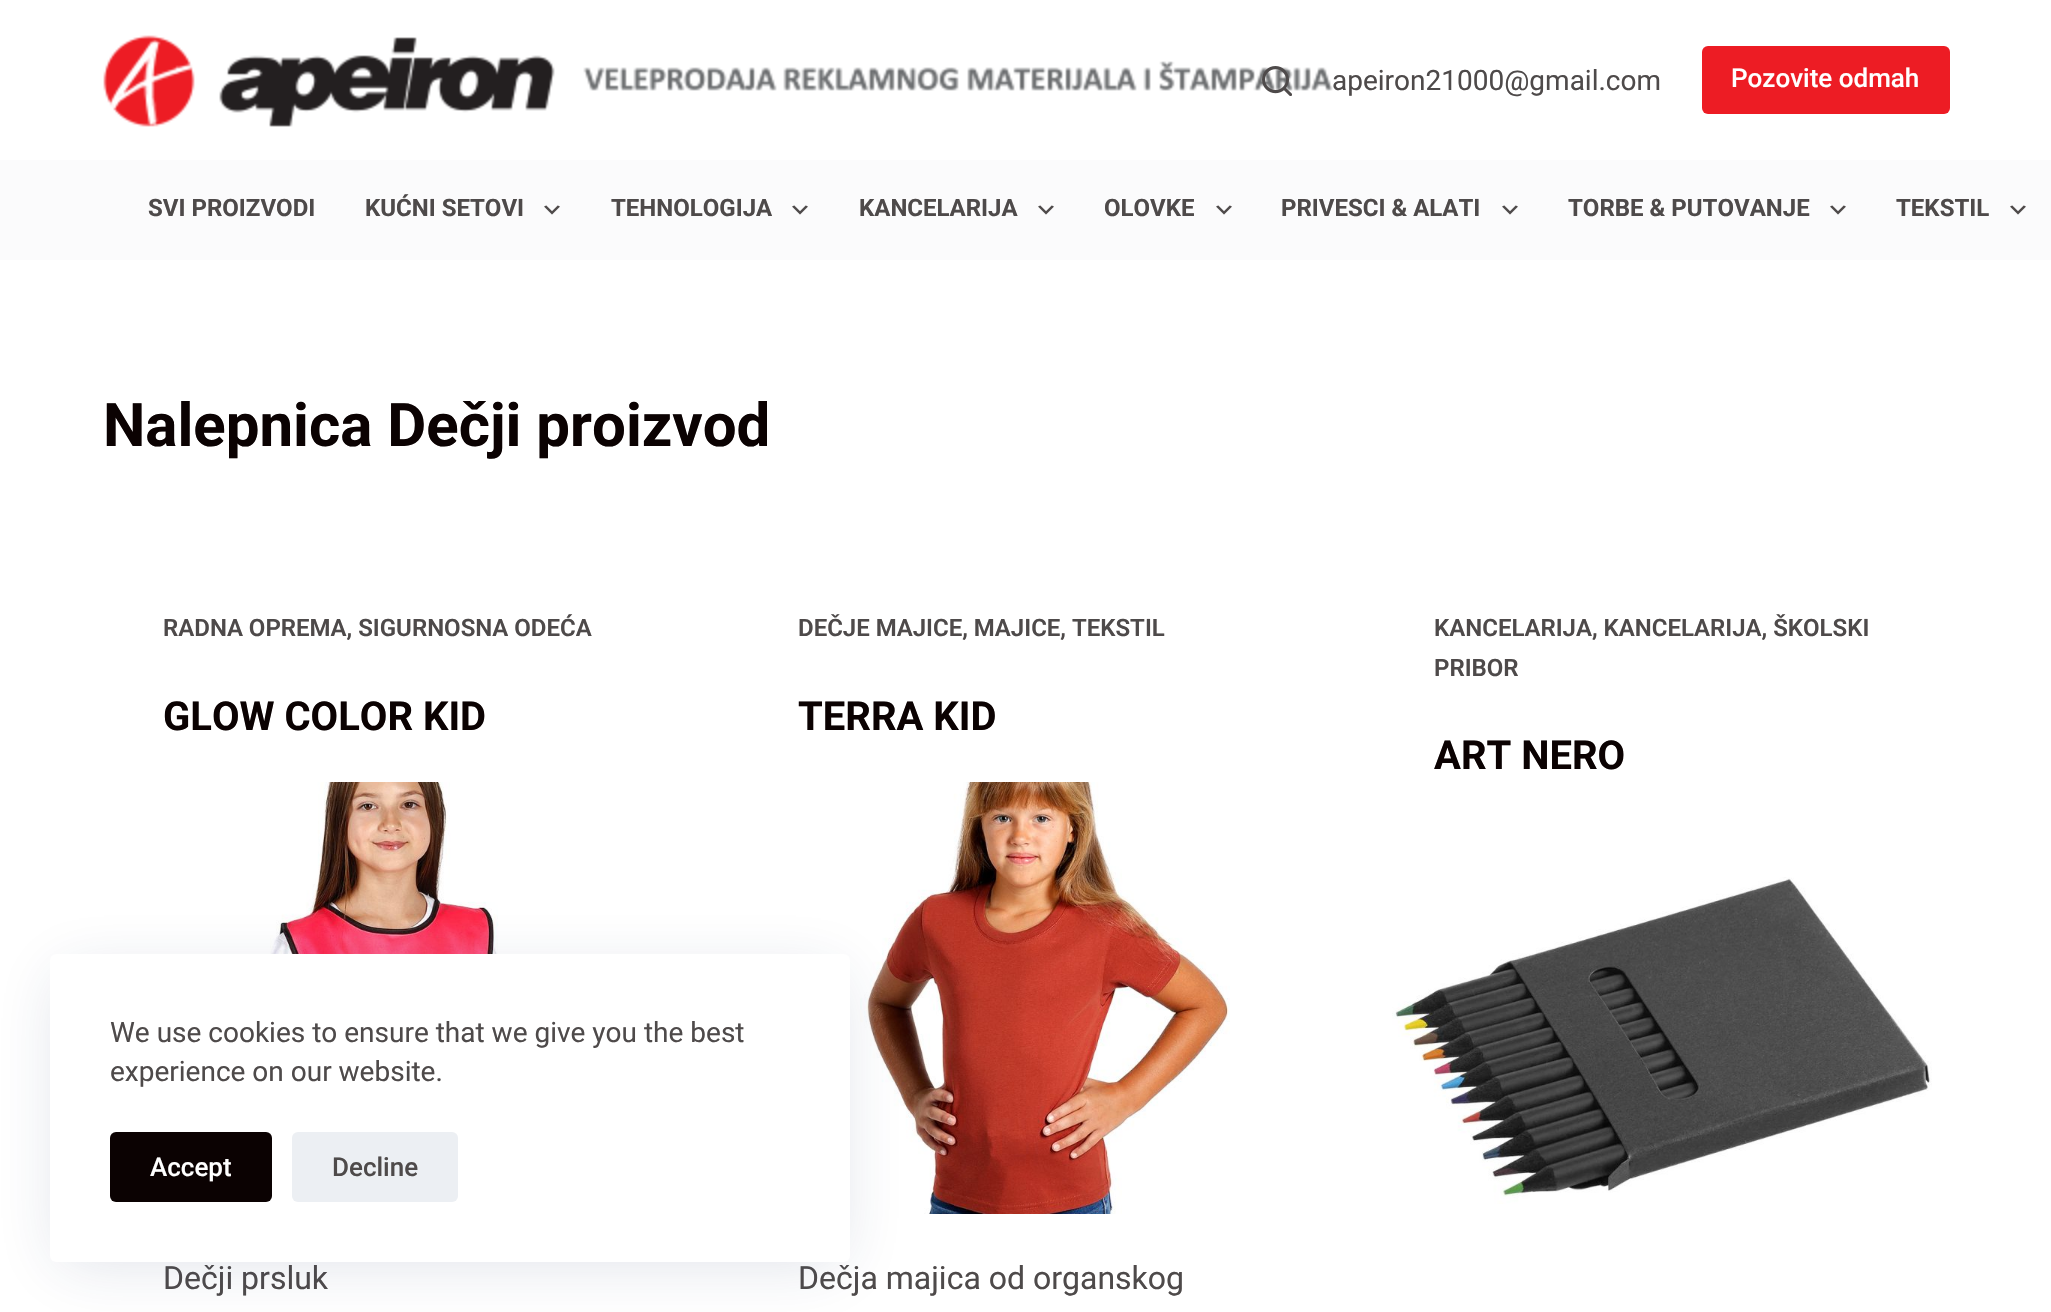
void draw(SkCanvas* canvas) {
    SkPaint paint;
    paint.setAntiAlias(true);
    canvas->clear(0xFFFFFFFF);
    canvas->drawImageRect(SkImages::DeferredFromEncodedData(SkData::MakeFromFileName("img1.png")), SkRect::MakeXYWH(103, 35, 1230, 92), SkSamplingOptions());
    canvas->drawImageRect(SkImages::DeferredFromEncodedData(SkData::MakeFromFileName("img2.png")), SkRect::MakeXYWH(1262, 66, 30, 30), SkSamplingOptions());
    SkFont font1(fontMgr->matchFamilyStyle("Roboto", SkFontStyle::Normal()), 28);
    font1.setSubpixel(true);
    paint.setColor(0xFF4E4A4A);
    canvas->drawString("apeiron21000@gmail.com", 1332, 90, font1, paint);
    paint.setColor(0xFFED1C24);
    canvas->drawRoundRect(SkRect::MakeXYWH(1702, 46, 248, 68), 6, 6, paint);
    SkFont font2(fontMgr->matchFamilyStyle("Roboto", SkFontStyle(500, SkFontStyle::kNormal_Width, SkFontStyle::kUpright_Slant)), 26);
    font2.setSubpixel(true);
    paint.setColor(0xFFFFFFFF);
    canvas->drawString("Pozovite odmah", 1731, 87, font2, paint);
    paint.setColor(0xFFFBFBFC);
    canvas->drawRect(SkRect::MakeXYWH(0, 160, 2051, 100), paint);
    SkFont font3(fontMgr->matchFamilyStyle("Roboto", SkFontStyle::Bold()), 24);
    font3.setSubpixel(true);
    paint.setColor(0xFF4E4A4A);
    canvas->drawString("SVI PROIZVODI", 148, 216, font3, paint);
    canvas->drawString("KUĆNI SETOVI", 365, 216, font3, paint);
    canvas->drawImageRect(SkImages::DeferredFromEncodedData(SkData::MakeFromFileName("img3.png")), SkRect::MakeXYWH(544, 205, 16, 10), SkSamplingOptions());
    canvas->drawString("TEHNOLOGIJA", 611, 216, font3, paint);
    canvas->drawImageRect(SkImages::DeferredFromEncodedData(SkData::MakeFromFileName("img3.png")), SkRect::MakeXYWH(792, 205, 16, 10), SkSamplingOptions());
    canvas->drawString("KANCELARIJA", 859, 216, font3, paint);
    canvas->drawImageRect(SkImages::DeferredFromEncodedData(SkData::MakeFromFileName("img3.png")), SkRect::MakeXYWH(1038, 205, 16, 10), SkSamplingOptions());
    canvas->drawString("OLOVKE", 1104, 216, font3, paint);
    canvas->drawImageRect(SkImages::DeferredFromEncodedData(SkData::MakeFromFileName("img3.png")), SkRect::MakeXYWH(1216, 205, 16, 10), SkSamplingOptions());
    canvas->drawString("PRIVESCI & ALATI", 1281, 216, font3, paint);
    canvas->drawImageRect(SkImages::DeferredFromEncodedData(SkData::MakeFromFileName("img3.png")), SkRect::MakeXYWH(1502, 205, 16, 10), SkSamplingOptions());
    canvas->drawString("TORBE & PUTOVANJE", 1568, 216, font3, paint);
    canvas->drawImageRect(SkImages::DeferredFromEncodedData(SkData::MakeFromFileName("img3.png")), SkRect::MakeXYWH(1830, 205, 16, 10), SkSamplingOptions());
    canvas->drawString("TEKSTIL", 1896, 216, font3, paint);
    canvas->drawImageRect(SkImages::DeferredFromEncodedData(SkData::MakeFromFileName("img3.png")), SkRect::MakeXYWH(2010, 205, 16, 10), SkSamplingOptions());
    SkFont font4(fontMgr->matchFamilyStyle("Roboto", SkFontStyle::Bold()), 60);
    font4.setSubpixel(true);
    paint.setColor(0xFF0B0202);
    canvas->drawString("Nalepnica Dečji proizvod", 103, 446, font4, paint);
    SkFont font5(fontMgr->matchFamilyStyle("Roboto", SkFontStyle(600, SkFontStyle::kNormal_Width, SkFontStyle::kUpright_Slant)), 24);
    font5.setSubpixel(true);
    paint.setColor(0xFF4E4A4A);
    canvas->drawString("RADNA OPREMA, SIGURNOSNA ODEĆA", 163, 636, font5, paint);
    SkFont font6(fontMgr->matchFamilyStyle("Roboto", SkFontStyle::Bold()), 40);
    font6.setSubpixel(true);
    paint.setColor(0xFF0B0202);
    canvas->drawString("GLOW COLOR KID", 163, 730, font6, paint);
    canvas->drawImageRect(SkImages::DeferredFromEncodedData(SkData::MakeFromFileName("img4.png")), SkRect::MakeXYWH(263, 782, 254, 172), SkSamplingOptions());
    SkFont font7(fontMgr->matchFamilyStyle("Roboto", SkFontStyle::Normal()), 32);
    font7.setSubpixel(true);
    paint.setColor(0xFF4E4A4A);
    canvas->drawString("Dečji prsluk", 163, 1289, font7, paint);
    canvas->drawString("DEČJE MAJICE, MAJICE, TEKSTIL", 798, 636, font5, paint);
    paint.setColor(0xFF0B0202);
    canvas->drawString("TERRA KID", 798, 730, font6, paint);
    canvas->drawImageRect(SkImages::DeferredFromEncodedData(SkData::MakeFromFileName("img5.png")), SkRect::MakeXYWH(860, 782, 370, 432), SkSamplingOptions());
    paint.setColor(0xFF4E4A4A);
    canvas->drawString("Dečja majica od organskog", 798, 1289, font7, paint);
    canvas->drawString("KANCELARIJA, KANCELARIJA, ŠKOLSKI", 1434, 636, font5, paint);
    canvas->drawString("PRIBOR", 1434, 676, font5, paint);
    paint.setColor(0xFF0B0202);
    canvas->drawString("ART NERO", 1434, 769, font6, paint);
    canvas->drawImageRect(SkImages::DeferredFromEncodedData(SkData::MakeFromFileName("img6.png")), SkRect::MakeXYWH(1392, 877, 540, 327), SkSamplingOptions());
    paint.setColor(0x26223865);
    paint.setMaskFilter(SkMaskFilter::MakeBlur(kNormal_SkBlurStyle, 30));
    canvas->drawRect(SkRect::MakeXYWH(60, 974, 780, 288), paint);
    paint.setMaskFilter(nullptr);
    paint.setColor(0xFFFFFFFF);
    canvas->drawRoundRect(SkRect::MakeXYWH(50, 954, 800, 308), 6, 6, paint);
    paint.setColor(0xFF4E4A4A);
    canvas->drawString("We use cookies to ensure that we give you the best", 110, 1042, font1, paint);
    canvas->drawString("experience on our website.", 110, 1081, font1, paint);
    paint.setColor(0xFF0B0202);
    canvas->drawRoundRect(SkRect::MakeXYWH(110, 1132, 162, 70), 6, 6, paint);
    paint.setColor(0xFFFFFFFF);
    canvas->drawString("Accept", 150, 1176, font2, paint);
    paint.setColor(0xFFECEFF3);
    canvas->drawRoundRect(SkRect::MakeXYWH(292, 1132, 166, 70), 6, 6, paint);
    paint.setColor(0xFF4E4A4A);
    canvas->drawString("Decline", 332, 1176, font2, paint);
}
